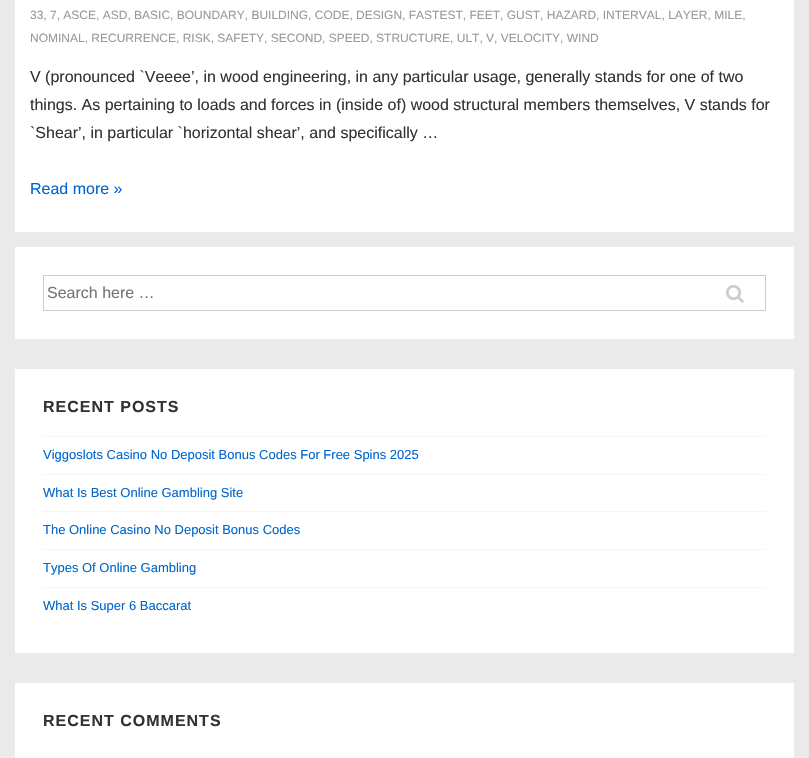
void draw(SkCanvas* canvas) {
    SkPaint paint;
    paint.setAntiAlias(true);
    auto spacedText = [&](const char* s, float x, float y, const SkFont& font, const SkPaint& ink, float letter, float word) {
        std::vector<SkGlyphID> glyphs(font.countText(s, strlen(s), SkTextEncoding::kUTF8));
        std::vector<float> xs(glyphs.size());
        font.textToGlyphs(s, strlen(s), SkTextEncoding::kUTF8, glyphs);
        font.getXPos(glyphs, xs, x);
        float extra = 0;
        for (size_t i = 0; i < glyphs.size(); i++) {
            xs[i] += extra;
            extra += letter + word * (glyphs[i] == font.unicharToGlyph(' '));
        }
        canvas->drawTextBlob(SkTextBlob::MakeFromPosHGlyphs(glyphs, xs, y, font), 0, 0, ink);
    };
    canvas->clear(0xFFEAEAEA);
    paint.setColor(0xFFFFFFFF);
    canvas->drawRect(SkRect::MakeXYWH(15, 0, 779, 232), paint);
    SkFont font1(fontMgr->matchFamilyStyle("Liberation Sans", SkFontStyle::Normal()), 12);
    font1.setSubpixel(true);
    paint.setColor(0xFF999999);
    canvas->drawString("33, 7, ASCE, ASD, BASIC, BOUNDARY, BUILDING, CODE, DESIGN, FASTEST, FEET, GUST, HAZARD, INTERVAL, LAYER, MILE,", 30, 19, font1, paint);
    canvas->drawString("NOMINAL, RECURRENCE, RISK, SAFETY, SECOND, SPEED, STRUCTURE, ULT, V, VELOCITY, WIND", 30, 42, font1, paint);
    SkFont font2(fontMgr->matchFamilyStyle("Liberation Sans", SkFontStyle::Normal()), 16);
    font2.setSubpixel(true);
    paint.setColor(0xFF333333);
    canvas->drawString("V (pronounced `Veeee’, in wood engineering, in any particular usage, generally stands for one of two", 30, 82, font2, paint);
    canvas->drawString("things. As pertaining to loads and forces in (inside of) wood structural members themselves, V stands for", 30, 110, font2, paint);
    canvas->drawString("`Shear’, in particular `horizontal shear’, and specifically …", 30, 138, font2, paint);
    paint.setColor(0xFF0066CC);
    canvas->drawString("Read more »", 30, 194, font2, paint);
    paint.setColor(0xFFFFFFFF);
    canvas->drawRect(SkRect::MakeXYWH(15, 247, 779, 92), paint);
    paint.setStyle(SkPaint::kStroke_Style);
    paint.setStrokeWidth(1);
    paint.setColor(0xFFCCCCCC);
    canvas->drawRect(SkRect::MakeXYWH(43.5f, 275.5f, 722, 35), paint);
    paint.setStyle(SkPaint::kFill_Style);
    paint.setColor(0xFF757575);
    canvas->drawString("Search here …", 47, 298, font2, paint);
    canvas->drawImageRect(SkImages::DeferredFromEncodedData(SkData::MakeFromFileName("img1.png")), SkRect::MakeXYWH(726, 285, 18, 18), SkSamplingOptions());
    paint.setColor(0xFFFFFFFF);
    canvas->drawRect(SkRect::MakeXYWH(15, 369, 779, 284), paint);
    SkFont font3(fontMgr->matchFamilyStyle("Liberation Sans", SkFontStyle::Bold()), 16);
    font3.setSubpixel(true);
    paint.setColor(0xFF333333);
    spacedText("RECENT POSTS", 43, 412, font3, paint, 1, 0);
    paint.setStyle(SkPaint::kStroke_Style);
    paint.setColor(0xFFEEEEEE);
    paint.setPathEffect(SkDashPathEffect::Make({{1, 1}}, 0));
    canvas->drawPath(SkPathBuilder().moveTo(43, 436.5f).lineTo(766, 436.5f).detach(), paint);
    paint.setPathEffect(nullptr);
    SkFont font4(fontMgr->matchFamilyStyle("Liberation Sans", SkFontStyle::Normal()), 13);
    font4.setSubpixel(true);
    paint.setStyle(SkPaint::kFill_Style);
    paint.setColor(0xFF0066CC);
    canvas->drawString("Viggoslots Casino No Deposit Bonus Codes For Free Spins 2025", 43, 459, font4, paint);
    paint.setStyle(SkPaint::kStroke_Style);
    paint.setColor(0xFFEEEEEE);
    paint.setPathEffect(SkDashPathEffect::Make({{1, 1}}, 0));
    canvas->drawPath(SkPathBuilder().moveTo(43, 474.5f).lineTo(766, 474.5f).detach(), paint);
    paint.setPathEffect(nullptr);
    paint.setStyle(SkPaint::kFill_Style);
    paint.setColor(0xFF0066CC);
    canvas->drawString("What Is Best Online Gambling Site", 43, 497, font4, paint);
    paint.setStyle(SkPaint::kStroke_Style);
    paint.setColor(0xFFEEEEEE);
    paint.setPathEffect(SkDashPathEffect::Make({{1, 1}}, 0));
    canvas->drawPath(SkPathBuilder().moveTo(43, 511.5f).lineTo(766, 511.5f).detach(), paint);
    paint.setPathEffect(nullptr);
    paint.setStyle(SkPaint::kFill_Style);
    paint.setColor(0xFF0066CC);
    canvas->drawString("The Online Casino No Deposit Bonus Codes", 43, 534, font4, paint);
    paint.setStyle(SkPaint::kStroke_Style);
    paint.setColor(0xFFEEEEEE);
    paint.setPathEffect(SkDashPathEffect::Make({{1, 1}}, 0));
    canvas->drawPath(SkPathBuilder().moveTo(43, 549.5f).lineTo(766, 549.5f).detach(), paint);
    paint.setPathEffect(nullptr);
    paint.setStyle(SkPaint::kFill_Style);
    paint.setColor(0xFF0066CC);
    canvas->drawString("Types Of Online Gambling", 43, 572, font4, paint);
    paint.setStyle(SkPaint::kStroke_Style);
    paint.setColor(0xFFEEEEEE);
    paint.setPathEffect(SkDashPathEffect::Make({{1, 1}}, 0));
    canvas->drawPath(SkPathBuilder().moveTo(43, 587.5f).lineTo(766, 587.5f).detach(), paint);
    paint.setPathEffect(nullptr);
    paint.setStyle(SkPaint::kFill_Style);
    paint.setColor(0xFF0066CC);
    canvas->drawString("What Is Super 6 Baccarat", 43, 610, font4, paint);
    paint.setColor(0xFFFFFFFF);
    canvas->drawRect(SkRect::MakeXYWH(15, 683, 779, 75), paint);
    paint.setColor(0xFF333333);
    spacedText("RECENT COMMENTS", 43, 726, font3, paint, 1, 0);
}
